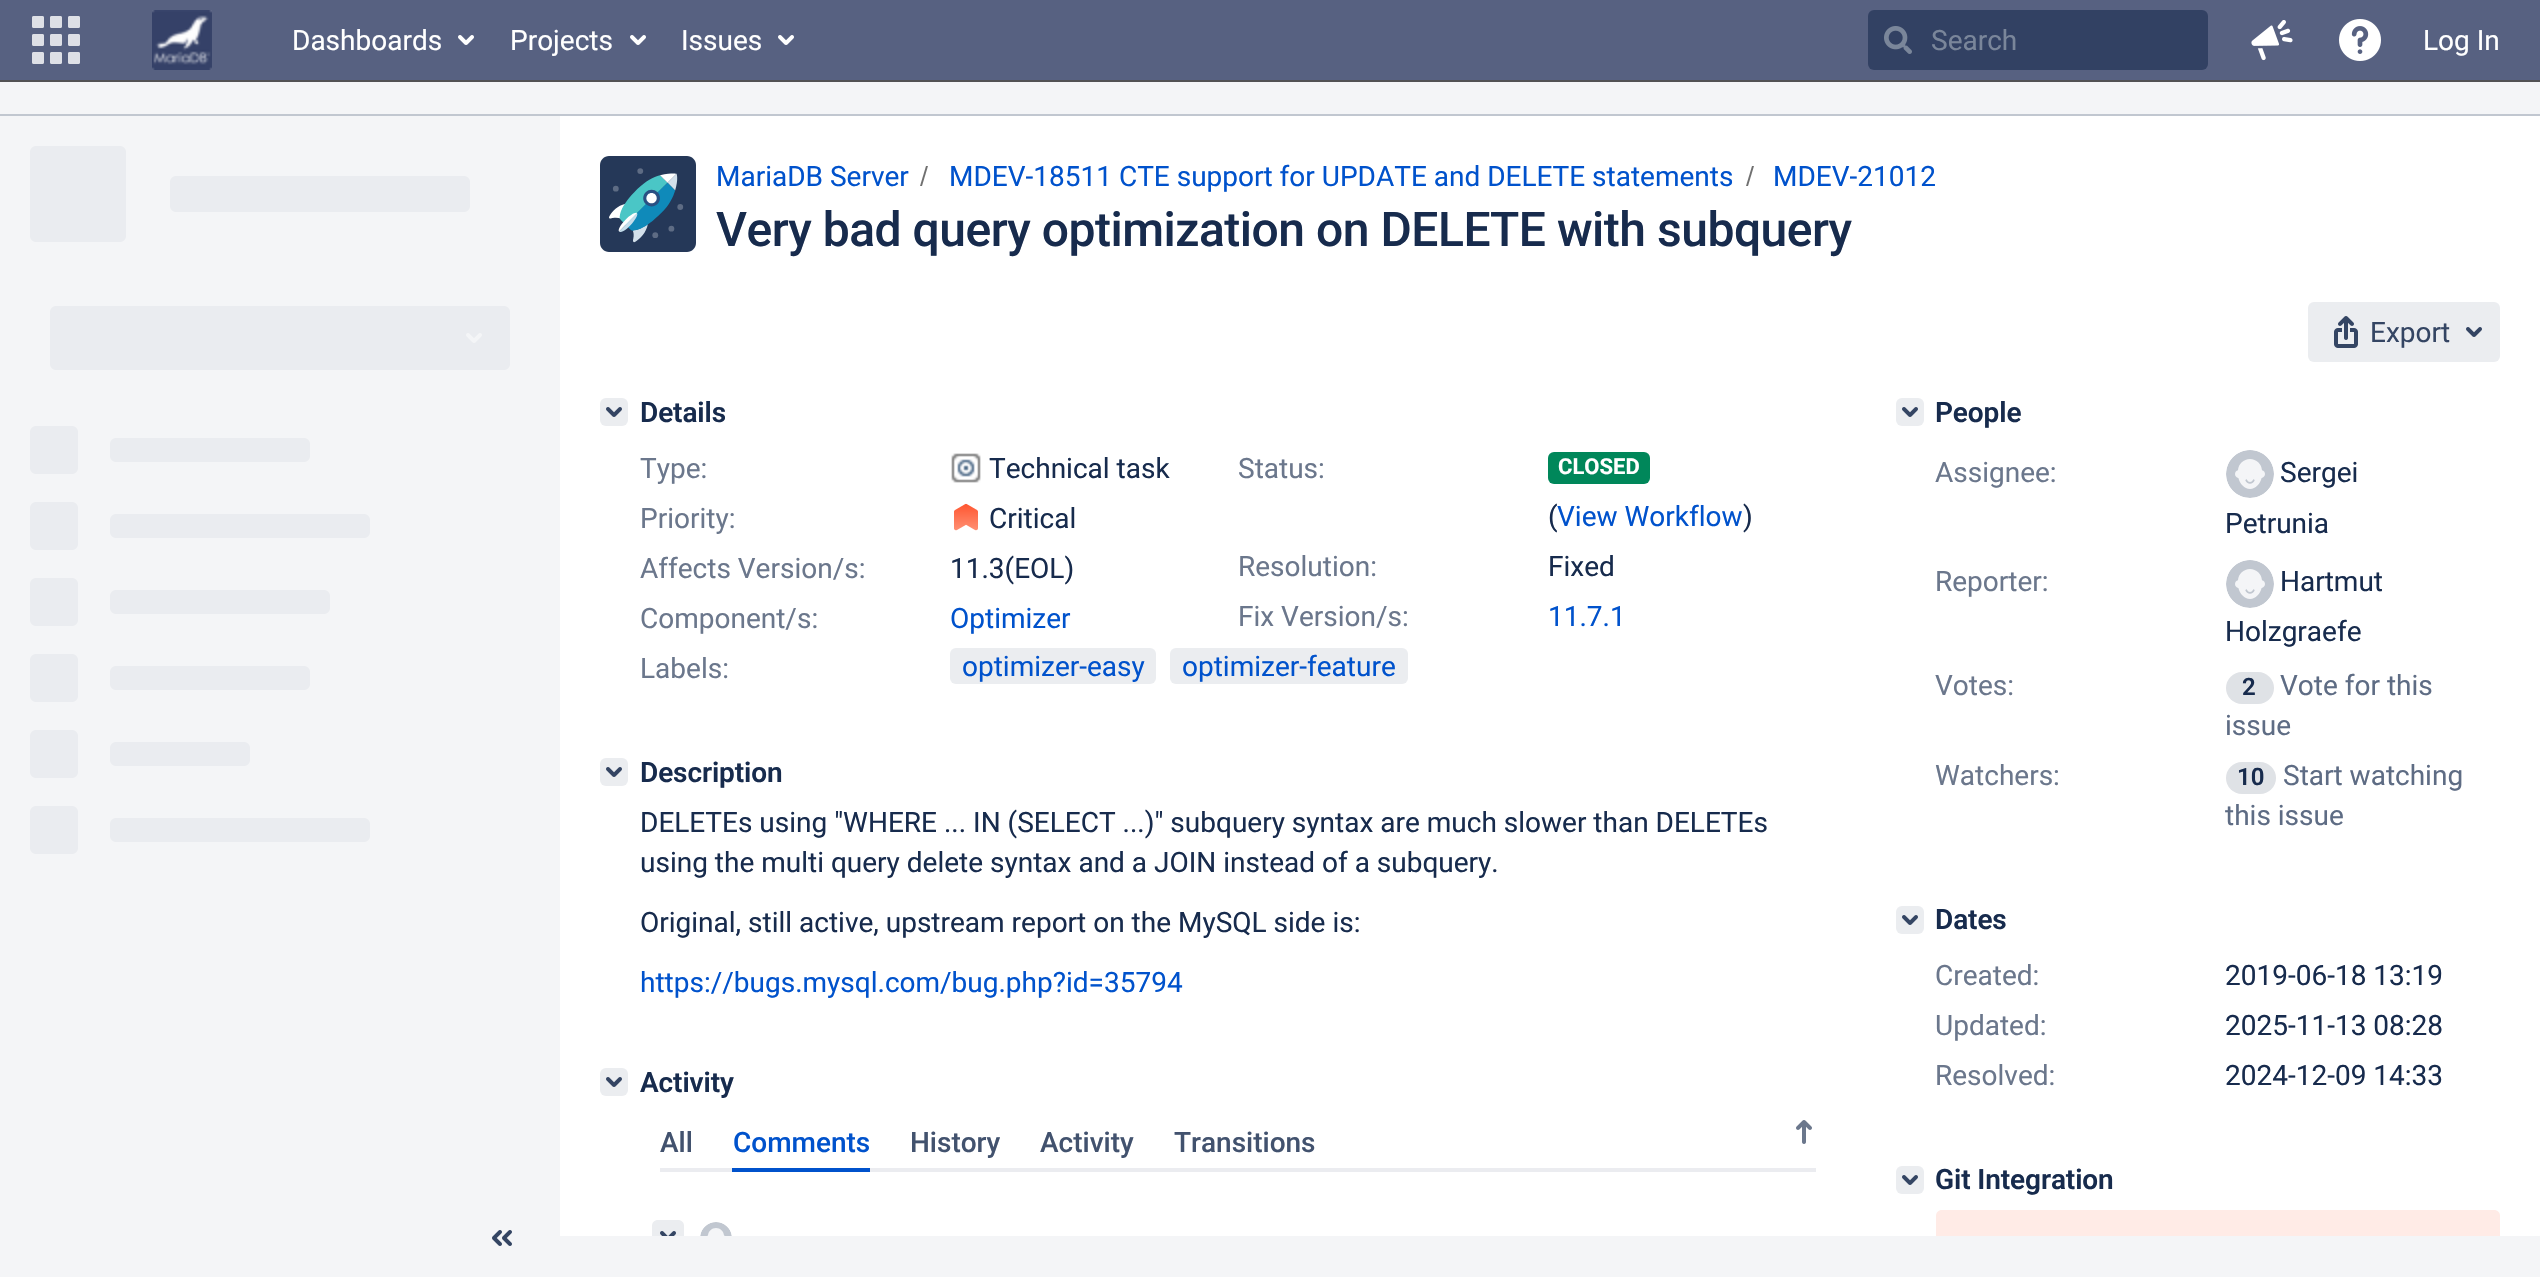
void draw(SkCanvas* canvas) {
    SkPaint paint;
    paint.setAntiAlias(true);
    auto spacedText = [&](const char* s, float x, float y, const SkFont& font, const SkPaint& ink, float letter, float word) {
        std::vector<SkGlyphID> glyphs(font.countText(s, strlen(s), SkTextEncoding::kUTF8));
        std::vector<float> xs(glyphs.size());
        font.textToGlyphs(s, strlen(s), SkTextEncoding::kUTF8, glyphs);
        font.getXPos(glyphs, xs, x);
        float extra = 0;
        for (size_t i = 0; i < glyphs.size(); i++) {
            xs[i] += extra;
            extra += letter + word * (glyphs[i] == font.unicharToGlyph(' '));
        }
        canvas->drawTextBlob(SkTextBlob::MakeFromPosHGlyphs(glyphs, xs, y, font), 0, 0, ink);
    };
    canvas->clear(0xFFF4F5F7);
    paint.setColor(0xFF576181);
    canvas->drawRect(SkRect::MakeXYWH(0, 0, 2540, 80), paint);
    paint.setColor(0xFF525254);
    canvas->drawRect(SkRect::MakeXYWH(0, 80, 2540, 2), paint);
    canvas->drawImageRect(SkImages::DeferredFromEncodedData(SkData::MakeFromFileName("img1.png")), SkRect::MakeXYWH(32, 16, 48, 48), SkSamplingOptions());
    canvas->drawImageRect(SkImages::DeferredFromEncodedData(SkData::MakeFromFileName("img2.png")), SkRect::MakeXYWH(152, 10, 60, 60), SkSamplingOptions());
    SkFont font1(fontMgr->matchFamilyStyle("Roboto", SkFontStyle::Normal()), 28);
    font1.setSubpixel(true);
    paint.setColor(0xFFFFFFFF);
    canvas->drawString("Dashboards", 292, 50, font1, paint);
    canvas->drawImageRect(SkImages::DeferredFromEncodedData(SkData::MakeFromFileName("img3.png")), SkRect::MakeXYWH(458, 35, 16, 10), SkSamplingOptions());
    canvas->drawString("Projects", 510, 50, font1, paint);
    canvas->drawImageRect(SkImages::DeferredFromEncodedData(SkData::MakeFromFileName("img3.png")), SkRect::MakeXYWH(630, 35, 16, 10), SkSamplingOptions());
    canvas->drawString("Issues", 681, 50, font1, paint);
    canvas->drawImageRect(SkImages::DeferredFromEncodedData(SkData::MakeFromFileName("img3.png")), SkRect::MakeXYWH(778, 35, 16, 10), SkSamplingOptions());
    paint.setColor(0xFF324163);
    canvas->drawRoundRect(SkRect::MakeXYWH(1868, 10, 340, 60), 6, 6, paint);
    canvas->drawImageRect(SkImages::DeferredFromEncodedData(SkData::MakeFromFileName("img4.png")), SkRect::MakeXYWH(1884, 26, 28, 28), SkSamplingOptions());
    paint.setColor(0xFF7A869A);
    canvas->drawString("Search", 1931, 50, font1, paint);
    canvas->drawImageRect(SkImages::DeferredFromEncodedData(SkData::MakeFromFileName("img5.png")), SkRect::MakeXYWH(2251, 20, 42, 41), SkSamplingOptions());
    canvas->drawImageRect(SkImages::DeferredFromEncodedData(SkData::MakeFromFileName("img6.png")), SkRect::MakeXYWH(2339, 19, 42, 42), SkSamplingOptions());
    paint.setColor(0xFFFFFFFF);
    canvas->drawString("Log In", 2423, 50, font1, paint);
    paint.setColor(0xFFC1C7D0);
    canvas->drawRect(SkRect::MakeXYWH(0, 114, 2540, 2), paint);
    canvas->drawImageRect(SkImages::DeferredFromEncodedData(SkData::MakeFromFileName("img7.png")), SkRect::MakeXYWH(30, 146, 480, 708), SkSamplingOptions());
    canvas->drawImageRect(SkImages::DeferredFromEncodedData(SkData::MakeFromFileName("img8.png")), SkRect::MakeXYWH(492, 1230, 20, 16), SkSamplingOptions());
    paint.setColor(0xFFFFFFFF);
    canvas->drawRect(SkRect::MakeXYWH(560, 116, 1980, 1120), paint);
    canvas->drawImageRect(SkImages::DeferredFromEncodedData(SkData::MakeFromFileName("img9.png")), SkRect::MakeXYWH(600, 156, 96, 96), SkSamplingOptions());
    paint.setColor(0xFF0052CC);
    canvas->drawString("MariaDB Server", 716, 186, font1, paint);
    paint.setColor(0xFF707070);
    canvas->drawPath(SkPathBuilder().moveTo(922, 186).lineTo(928, 166).lineTo(926, 166).lineTo(920, 186).close().detach(), paint);
    paint.setColor(0xFF0052CC);
    canvas->drawString("MDEV-18511 CTE support for UPDATE and DELETE statements", 949, 186, font1, paint);
    paint.setColor(0xFF707070);
    canvas->drawPath(SkPathBuilder().moveTo(1748, 186).lineTo(1754, 166).lineTo(1752, 166).lineTo(1746, 186).close().detach(), paint);
    paint.setColor(0xFF0052CC);
    canvas->drawString("MDEV-21012", 1773, 186, font1, paint);
    SkFont font2(fontMgr->matchFamilyStyle("Roboto", SkFontStyle(500, SkFontStyle::kNormal_Width, SkFontStyle::kUpright_Slant)), 48);
    font2.setSubpixel(true);
    paint.setColor(0xFF172B4D);
    spacedText("Very bad query optimization on DELETE with subquery", 716, 246, font2, paint, -0.48f, 0);
    paint.setColor(0xFFEBEDF0);
    canvas->drawRoundRect(SkRect::MakeXYWH(2308, 302, 192, 60), 6, 6, paint);
    canvas->drawImageRect(SkImages::DeferredFromEncodedData(SkData::MakeFromFileName("img10.png")), SkRect::MakeXYWH(2334, 316, 24, 32), SkSamplingOptions());
    paint.setColor(0xFF344563);
    canvas->drawString("Export", 2370, 342, font1, paint);
    canvas->drawImageRect(SkImages::DeferredFromEncodedData(SkData::MakeFromFileName("img11.png")), SkRect::MakeXYWH(2466, 327, 16, 10), SkSamplingOptions());
    paint.setColor(0xFFEBEDF0);
    canvas->drawRoundRect(SkRect::MakeXYWH(600, 398, 28, 28), 6, 6, paint);
    canvas->drawImageRect(SkImages::DeferredFromEncodedData(SkData::MakeFromFileName("img12.png")), SkRect::MakeXYWH(606, 407, 16, 10), SkSamplingOptions());
    SkFont font3(fontMgr->matchFamilyStyle("Roboto", SkFontStyle(600, SkFontStyle::kNormal_Width, SkFontStyle::kUpright_Slant)), 28);
    font3.setSubpixel(true);
    paint.setColor(0xFF172B4D);
    spacedText("Details", 640, 422, font3, paint, -0.1f, 0);
    paint.setColor(0xFF6B778C);
    canvas->drawString("Type:", 640, 478, font1, paint);
    canvas->drawImageRect(SkImages::DeferredFromEncodedData(SkData::MakeFromFileName("img13.png")), SkRect::MakeXYWH(951, 453, 30, 30), SkSamplingOptions());
    paint.setColor(0xFF172B4D);
    canvas->drawString("Technical task", 989, 478, font1, paint);
    paint.setColor(0xFF6B778C);
    canvas->drawString("Status:", 1238, 478, font1, paint);
    paint.setColor(0xFF00875A);
    canvas->drawRoundRect(SkRect::MakeXYWH(1548, 452, 102, 32), 6, 6, paint);
    SkFont font4(fontMgr->matchFamilyStyle("Roboto", SkFontStyle::Bold()), 22);
    font4.setSubpixel(true);
    paint.setColor(0xFFFFFFFF);
    canvas->drawString("CLOSED", 1558, 474, font4, paint);
    paint.setColor(0xFF172B4D);
    canvas->drawString("(", 1548, 526, font1, paint);
    paint.setColor(0xFF0052CC);
    canvas->drawString("View Workflow", 1557, 526, font1, paint);
    paint.setColor(0xFF172B4D);
    canvas->drawString(")", 1743, 526, font1, paint);
    paint.setColor(0xFF6B778C);
    canvas->drawString("Priority:", 640, 528, font1, paint);
    canvas->drawImageRect(SkImages::DeferredFromEncodedData(SkData::MakeFromFileName("img14.png")), SkRect::MakeXYWH(954, 503, 24, 28), SkSamplingOptions());
    paint.setColor(0xFF172B4D);
    canvas->drawString("Critical", 989, 528, font1, paint);
    paint.setColor(0xFF6B778C);
    canvas->drawString("Affects Version/s:", 640, 578, font1, paint);
    paint.setColor(0xFF172B4D);
    canvas->drawString("11.3(EOL)", 950, 578, font1, paint);
    paint.setColor(0xFF6B778C);
    canvas->drawString("Resolution:", 1238, 576, font1, paint);
    paint.setColor(0xFF172B4D);
    canvas->drawString("Fixed", 1548, 576, font1, paint);
    paint.setColor(0xFF6B778C);
    canvas->drawString("Component/s:", 640, 628, font1, paint);
    paint.setColor(0xFF0052CC);
    canvas->drawString("Optimizer", 950, 628, font1, paint);
    paint.setColor(0xFF6B778C);
    canvas->drawString("Fix Version/s:", 1238, 626, font1, paint);
    paint.setColor(0xFF0052CC);
    canvas->drawString("11.7.1", 1548, 626, font1, paint);
    paint.setColor(0xFF6B778C);
    canvas->drawString("Labels:", 640, 678, font1, paint);
    paint.setColor(0xFFEBEDF0);
    canvas->drawRoundRect(SkRect::MakeXYWH(950, 648, 206, 36), 6, 6, paint);
    paint.setColor(0xFF0052CC);
    canvas->drawString("optimizer-easy", 962, 676, font1, paint);
    paint.setColor(0xFFEBEDF0);
    canvas->drawRoundRect(SkRect::MakeXYWH(1170, 648, 238, 36), 6, 6, paint);
    paint.setColor(0xFF0052CC);
    canvas->drawString("optimizer-feature", 1182, 676, font1, paint);
    paint.setColor(0xFFEBEDF0);
    canvas->drawRoundRect(SkRect::MakeXYWH(600, 758, 28, 28), 6, 6, paint);
    canvas->drawImageRect(SkImages::DeferredFromEncodedData(SkData::MakeFromFileName("img12.png")), SkRect::MakeXYWH(606, 767, 16, 10), SkSamplingOptions());
    paint.setColor(0xFF172B4D);
    spacedText("Description", 640, 782, font3, paint, -0.1f, 0);
    canvas->drawString("DELETEs using \"WHERE ... IN (SELECT ...)\" subquery syntax are much slower than DELETEs", 640, 832, font1, paint);
    canvas->drawString("using the multi query delete syntax and a JOIN instead of a subquery.", 640, 872, font1, paint);
    canvas->drawString("Original, still active, upstream report on the MySQL side is:", 640, 932, font1, paint);
    paint.setColor(0xFF0052CC);
    canvas->drawString("https://bugs.mysql.com/bug.php?id=35794", 640, 992, font1, paint);
    paint.setColor(0xFFEBEDF0);
    canvas->drawRoundRect(SkRect::MakeXYWH(600, 1068, 28, 28), 6, 6, paint);
    canvas->drawImageRect(SkImages::DeferredFromEncodedData(SkData::MakeFromFileName("img12.png")), SkRect::MakeXYWH(606, 1077, 16, 10), SkSamplingOptions());
    paint.setColor(0xFF172B4D);
    spacedText("Activity", 640, 1092, font3, paint, -0.1f, 0);
    SkFont font5(fontMgr->matchFamilyStyle("Roboto", SkFontStyle(500, SkFontStyle::kNormal_Width, SkFontStyle::kUpright_Slant)), 28);
    font5.setSubpixel(true);
    paint.setColor(0xFF42526E);
    canvas->drawString("All", 660, 1152, font5, paint);
    paint.setColor(0xFF0052CC);
    canvas->drawString("Comments", 733, 1152, font5, paint);
    paint.setColor(0xFFEBECF0);
    canvas->drawRect(SkRect::MakeXYWH(660, 1168, 1156, 4), paint);
    paint.setColor(0xFF0052CC);
    canvas->drawRect(SkRect::MakeXYWH(732, 1168, 138, 4), paint);
    paint.setColor(0xFF42526E);
    canvas->drawString("History", 910, 1152, font5, paint);
    canvas->drawString("Activity", 1040, 1152, font5, paint);
    canvas->drawString("Transitions", 1174, 1152, font5, paint);
    canvas->drawImageRect(SkImages::DeferredFromEncodedData(SkData::MakeFromFileName("img15.png")), SkRect::MakeXYWH(1796, 1120, 16, 24), SkSamplingOptions());
    paint.setColor(0xFFEBEDF0);
    canvas->drawPath(SkPathBuilder().moveTo(658, 1220).lineTo(678, 1220).cubicTo(681.5f, 1220, 684, 1222.5f, 684, 1226).lineTo(684, 1236).lineTo(652, 1236).lineTo(652, 1226).cubicTo(652, 1222.5f, 654.5f, 1220, 658, 1220).close().detach(), paint);
    canvas->drawImageRect(SkImages::DeferredFromEncodedData(SkData::MakeFromFileName("img16.png")), SkRect::MakeXYWH(660, 1231, 16, 5), SkSamplingOptions());
    canvas->drawImageRect(SkImages::DeferredFromEncodedData(SkData::MakeFromFileName("img17.png")), SkRect::MakeXYWH(700, 1222, 32, 14), SkSamplingOptions());
    canvas->drawRoundRect(SkRect::MakeXYWH(1896, 398, 28, 28), 6, 6, paint);
    canvas->drawImageRect(SkImages::DeferredFromEncodedData(SkData::MakeFromFileName("img12.png")), SkRect::MakeXYWH(1902, 407, 16, 10), SkSamplingOptions());
    paint.setColor(0xFF172B4D);
    spacedText("People", 1935, 422, font3, paint, -0.1f, 0);
    paint.setColor(0xFF6B778C);
    canvas->drawString("Assignee:", 1935, 482, font1, paint);
    canvas->drawImageRect(SkImages::DeferredFromEncodedData(SkData::MakeFromFileName("img18.png")), SkRect::MakeXYWH(2226, 450, 48, 48), SkSamplingOptions());
    paint.setColor(0xFF172B4D);
    canvas->drawString("Sergei", 2280, 482, font1, paint);
    canvas->drawString("Petrunia", 2225, 533, font1, paint);
    paint.setColor(0xFF6B778C);
    canvas->drawString("Reporter:", 1935, 591, font1, paint);
    canvas->drawImageRect(SkImages::DeferredFromEncodedData(SkData::MakeFromFileName("img18.png")), SkRect::MakeXYWH(2226, 560, 48, 48), SkSamplingOptions());
    paint.setColor(0xFF172B4D);
    canvas->drawString("Hartmut", 2280, 591, font1, paint);
    canvas->drawString("Holzgraefe", 2225, 641, font1, paint);
    paint.setColor(0xFF6B778C);
    canvas->drawString("Votes:", 1935, 695, font1, paint);
    paint.setColor(0xFFDFE2E6);
    canvas->drawRoundRect(SkRect::MakeXYWH(2226, 672, 48, 32), 16, 16, paint);
    SkFont font6(fontMgr->matchFamilyStyle("Roboto", SkFontStyle(600, SkFontStyle::kNormal_Width, SkFontStyle::kUpright_Slant)), 24);
    font6.setSubpixel(true);
    paint.setColor(0xFF172B4D);
    canvas->drawString("2", 2242, 695, font6, paint);
    paint.setColor(0xFF5E6C84);
    canvas->drawString("Vote for this", 2280, 695, font1, paint);
    canvas->drawString("issue", 2225, 735, font1, paint);
    paint.setColor(0xFF6B778C);
    canvas->drawString("Watchers:", 1935, 785, font1, paint);
    paint.setColor(0xFFDFE2E6);
    canvas->drawRoundRect(SkRect::MakeXYWH(2226, 762, 50, 32), 16, 16, paint);
    paint.setColor(0xFF172B4D);
    canvas->drawString("10", 2237, 785, font6, paint);
    paint.setColor(0xFF5E6C84);
    canvas->drawString("Start watching", 2283, 785, font1, paint);
    canvas->drawString("this issue", 2225, 825, font1, paint);
    paint.setColor(0xFFEBEDF0);
    canvas->drawRoundRect(SkRect::MakeXYWH(1896, 906, 28, 28), 6, 6, paint);
    canvas->drawImageRect(SkImages::DeferredFromEncodedData(SkData::MakeFromFileName("img12.png")), SkRect::MakeXYWH(1902, 915, 16, 10), SkSamplingOptions());
    paint.setColor(0xFF172B4D);
    spacedText("Dates", 1935, 929, font3, paint, -0.1f, 0);
    paint.setColor(0xFF6B778C);
    canvas->drawString("Created:", 1935, 985, font1, paint);
    paint.setColor(0xFF172B4D);
    canvas->drawString("2019-06-18 13:19", 2225, 985, font1, paint);
    paint.setColor(0xFF6B778C);
    canvas->drawString("Updated:", 1935, 1035, font1, paint);
    paint.setColor(0xFF172B4D);
    canvas->drawString("2025-11-13 08:28", 2225, 1035, font1, paint);
    paint.setColor(0xFF6B778C);
    canvas->drawString("Resolved:", 1935, 1085, font1, paint);
    paint.setColor(0xFF172B4D);
    canvas->drawString("2024-12-09 14:33", 2225, 1085, font1, paint);
    paint.setColor(0xFFEBEDF0);
    canvas->drawRoundRect(SkRect::MakeXYWH(1896, 1166, 28, 28), 6, 6, paint);
    canvas->drawImageRect(SkImages::DeferredFromEncodedData(SkData::MakeFromFileName("img12.png")), SkRect::MakeXYWH(1902, 1175, 16, 10), SkSamplingOptions());
    paint.setColor(0xFF172B4D);
    spacedText("Git Integration", 1935, 1189, font3, paint, -0.1f, 0);
    paint.setColor(0xFFFFEBE6);
    canvas->drawPath(SkPathBuilder().moveTo(1942, 1210).lineTo(2494, 1210).cubicTo(2497.5f, 1210, 2500, 1212.5f, 2500, 1216).lineTo(2500, 1236).lineTo(1936, 1236).lineTo(1936, 1216).cubicTo(1936, 1212.5f, 1938.5f, 1210, 1942, 1210).close().detach(), paint);
}
